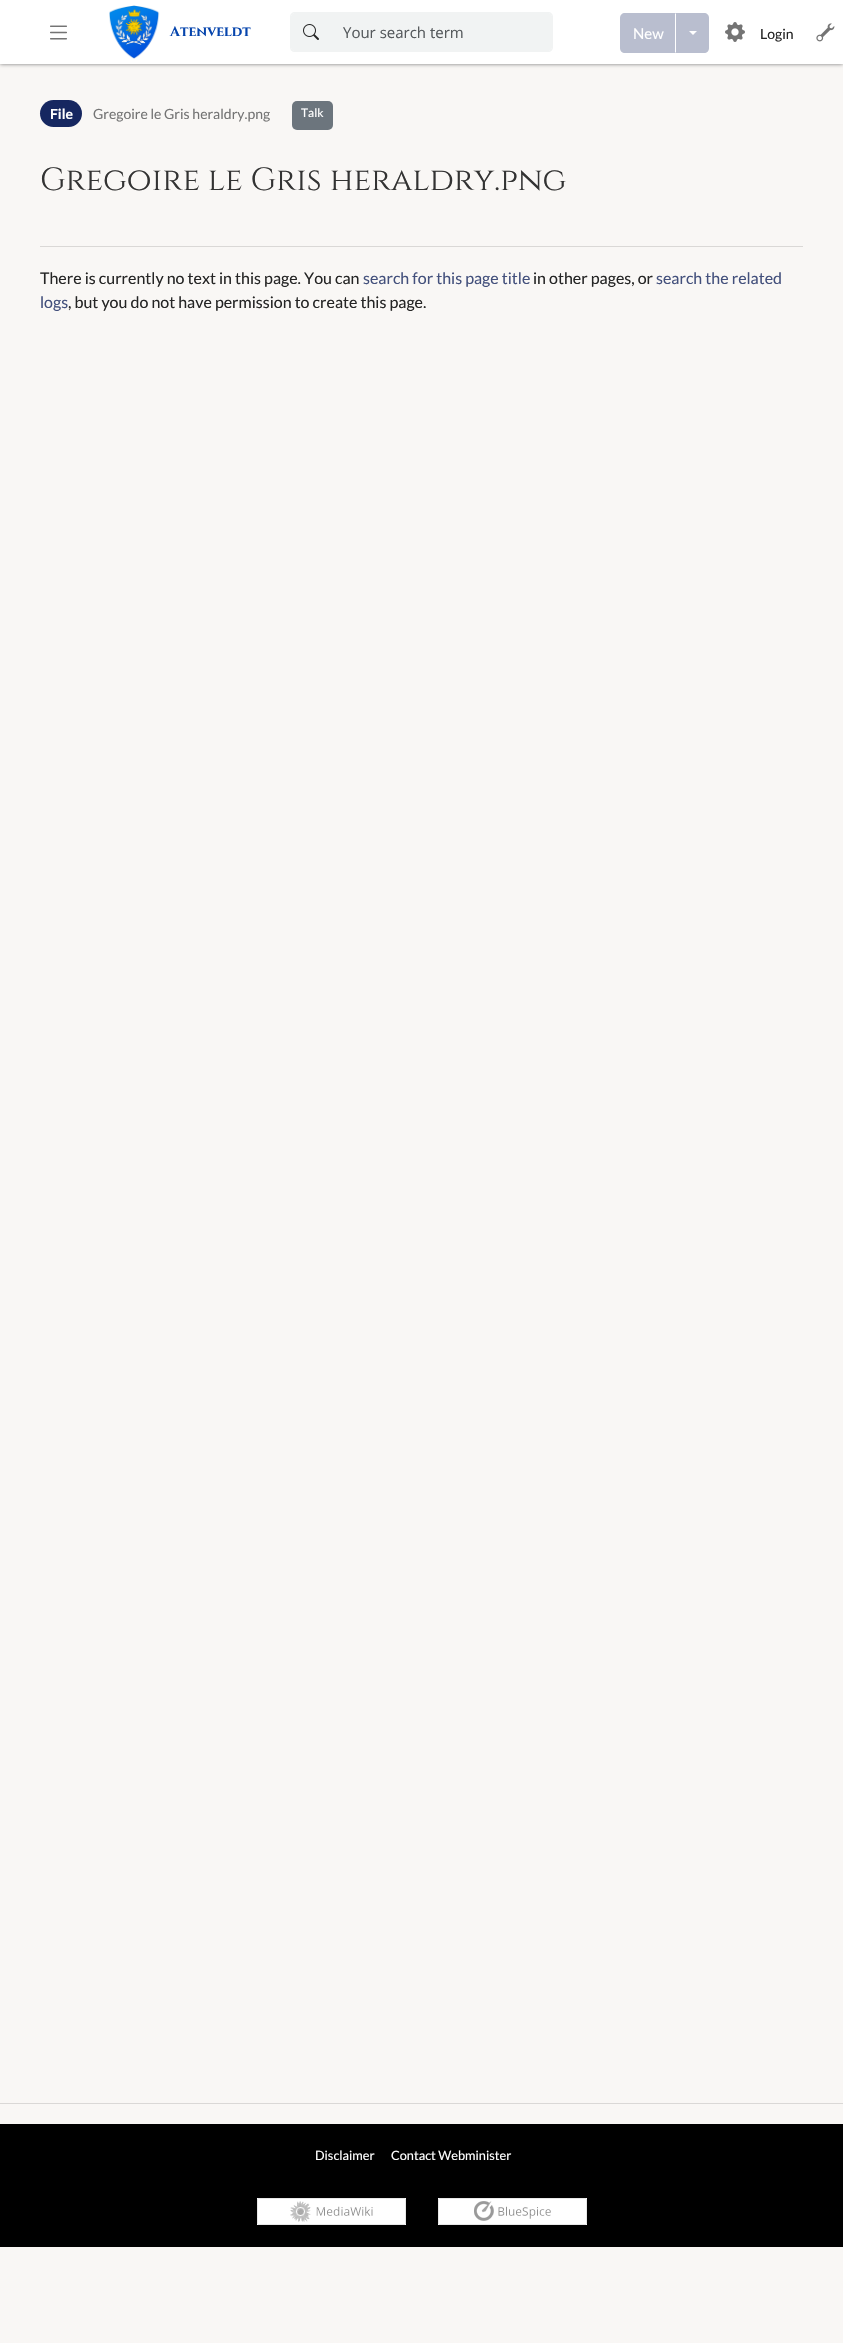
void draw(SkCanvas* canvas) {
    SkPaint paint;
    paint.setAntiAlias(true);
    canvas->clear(0xFFF9F7F5);
    paint.setColor(0xFF747474);
    paint.setMaskFilter(SkMaskFilter::MakeBlur(kNormal_SkBlurStyle, 2));
    canvas->drawRect(SkRect::MakeXYWH(0, 0, 843, 64), paint);
    paint.setMaskFilter(nullptr);
    paint.setColor(0xFFFFFFFF);
    canvas->drawRect(SkRect::MakeXYWH(0, 0, 843, 64), paint);
    canvas->drawImageRect(SkImages::DeferredFromEncodedData(SkData::MakeFromFileName("img1.png")), SkRect::MakeXYWH(50, 25, 17, 15), SkSamplingOptions());
    canvas->drawImageRect(SkImages::DeferredFromEncodedData(SkData::MakeFromFileName("img2.png")), SkRect::MakeXYWH(109, 5, 51, 54), SkSamplingOptions());
    SkFont font1(fontMgr->matchFamilyStyle("Cinzel", SkFontStyle::Bold()), 14);
    font1.setSubpixel(true);
    paint.setColor(0xFF0645AD);
    canvas->drawString("Atenveldt", 170, 36, font1, paint);
    paint.setColor(0xFFF1F3F3);
    canvas->drawPath(SkPathBuilder().moveTo(295, 13).lineTo(331, 13).lineTo(331, 51).lineTo(295, 51).cubicTo(293, 51, 291, 49, 291, 47).lineTo(291, 17).cubicTo(291, 15, 293, 13, 295, 13).close().detach(), paint);
    canvas->drawPath(SkPathBuilder(SkPathFillType::kEvenOdd).moveTo(295, 12).lineTo(331, 12).lineTo(331, 52).lineTo(295, 52).cubicTo(292, 52, 290, 50, 290, 47).lineTo(290, 17).cubicTo(290, 14, 292, 12, 295, 12).close().moveTo(295, 13).lineTo(331, 13).lineTo(331, 51).lineTo(295, 51).cubicTo(293, 51, 291, 49, 291, 47).lineTo(291, 17).cubicTo(291, 15, 293, 13, 295, 13).close().detach(), paint);
    canvas->drawImageRect(SkImages::DeferredFromEncodedData(SkData::MakeFromFileName("img3.png")), SkRect::MakeXYWH(303, 24, 16, 16), SkSamplingOptions());
    canvas->drawPath(SkPathBuilder().moveTo(331, 13).lineTo(548, 13).cubicTo(550, 13, 552, 15, 552, 17).lineTo(552, 47).cubicTo(552, 49, 550, 51, 548, 51).lineTo(331, 51).close().detach(), paint);
    canvas->drawPath(SkPathBuilder(SkPathFillType::kEvenOdd).moveTo(331, 12).lineTo(548, 12).cubicTo(551, 12, 553, 14, 553, 17).lineTo(553, 47).cubicTo(553, 50, 551, 52, 548, 52).lineTo(331, 52).close().moveTo(331, 13).lineTo(548, 13).cubicTo(550, 13, 552, 15, 552, 17).lineTo(552, 47).cubicTo(552, 49, 550, 51, 548, 51).lineTo(331, 51).close().detach(), paint);
    SkFont font2(fontMgr->matchFamilyStyle("Open Sans", SkFontStyle::Normal()), 15);
    font2.setSubpixel(true);
    paint.setColor(0xFF55595C);
    canvas->drawString("Your search term", 343, 38, font2, paint);
    paint.setColor(0xFFB9BECF);
    canvas->drawPath(SkPathBuilder().moveTo(625, 13).lineTo(676, 13).lineTo(676, 53).lineTo(625, 53).cubicTo(622, 53, 620, 51, 620, 48).lineTo(620, 18).cubicTo(620, 15, 622, 13, 625, 13).close().detach(), paint);
    paint.setColor(0xFFFFFFFF);
    canvas->drawPath(SkPathBuilder().moveTo(676, 13).lineTo(675, 14).lineTo(675, 52).lineTo(676, 53).close().detach(), paint);
    SkFont font3(fontMgr->matchFamilyStyle("Lato", SkFontStyle::Normal()), 15);
    font3.setSubpixel(true);
    canvas->drawString("New", 633, 39, font3, paint);
    paint.setColor(0xFFB9BECF);
    canvas->drawPath(SkPathBuilder().moveTo(676, 13).lineTo(704, 13).cubicTo(707, 13, 709, 15, 709, 18).lineTo(709, 48).cubicTo(709, 51, 707, 53, 704, 53).lineTo(676, 53).close().detach(), paint);
    paint.setColor(0xFFFFFFFF);
    canvas->drawPath(SkPathBuilder().moveTo(689, 31).lineTo(697, 31).lineTo(693, 35).close().detach(), paint);
    canvas->drawImageRect(SkImages::DeferredFromEncodedData(SkData::MakeFromFileName("img4.png")), SkRect::MakeXYWH(725, 22, 20, 20), SkSamplingOptions());
    SkFont font4(fontMgr->matchFamilyStyle("Lato", SkFontStyle::Normal()), 14);
    font4.setSubpixel(true);
    paint.setColor(0xFF252525);
    canvas->drawString("Login", 760, 39, font4, paint);
    canvas->drawImageRect(SkImages::DeferredFromEncodedData(SkData::MakeFromFileName("img5.png")), SkRect::MakeXYWH(816, 23, 19, 19), SkSamplingOptions());
    paint.setColor(0xFFDAD8D6);
    canvas->drawRect(SkRect::MakeXYWH(40, 246, 763, 1), paint);
    paint.setColor(0xFF162760);
    canvas->drawRoundRect(SkRect::MakeXYWH(40, 100, 42, 27), 13.5f, 13.5f, paint);
    SkFont font5(fontMgr->matchFamilyStyle("Lato", SkFontStyle::Bold()), 14);
    font5.setSubpixel(true);
    paint.setColor(0xFFFFFFFF);
    canvas->drawString("File", 50, 119, font5, paint);
    paint.setColor(0xFF747474);
    canvas->drawString("Gregoire le Gris heraldry.png", 93, 119, font4, paint);
    paint.setColor(0xFF6C757D);
    canvas->drawRoundRect(SkRect::MakeXYWH(292, 101, 41, 29), 5, 5, paint);
    SkFont font6(fontMgr->matchFamilyStyle("Lato", SkFontStyle::Normal()), 12);
    font6.setSubpixel(true);
    paint.setColor(0xFFFFFFFF);
    canvas->drawString("Talk", 301, 117, font6, paint);
    SkFont font7(fontMgr->matchFamilyStyle("Cinzel", SkFontStyle::Normal()), 32);
    font7.setSubpixel(true);
    paint.setColor(0xFF333333);
    canvas->drawString("Gregoire le Gris heraldry.png", 40, 190, font7, paint);
    SkFont font8(fontMgr->matchFamilyStyle("Lato", SkFontStyle::Normal()), 16);
    font8.setSubpixel(true);
    paint.setColor(0xFF252525);
    canvas->drawString("There is currently no text in this page. You can", 40, 284, font8, paint);
    paint.setColor(0xFF43507C);
    canvas->drawString("search for this page title", 363, 284, font8, paint);
    paint.setColor(0xFF252525);
    canvas->drawString("in other pages, or", 533, 284, font8, paint);
    paint.setColor(0xFF43507C);
    canvas->drawString("search the related", 656, 284, font8, paint);
    canvas->drawString("logs", 40, 308, font8, paint);
    paint.setColor(0xFF252525);
    canvas->drawString(", but you do not have permission to create this page.", 68, 308, font8, paint);
    paint.setColor(0xFFDAD8D6);
    canvas->drawRect(SkRect::MakeXYWH(0, 2103, 843, 1), paint);
    paint.setColor(0xFF000000);
    canvas->drawRect(SkRect::MakeXYWH(0, 2124, 843, 123), paint);
    SkFont font9(fontMgr->matchFamilyStyle("Lato", SkFontStyle::Normal()), 12.75f);
    font9.setSubpixel(true);
    paint.setColor(0xFFFFFFFF);
    canvas->drawString("Disclaimer", 315, 2160, font9, paint);
    canvas->drawString("Contact Webminister", 391, 2160, font9, paint);
    canvas->drawImageRect(SkImages::DeferredFromEncodedData(SkData::MakeFromFileName("img6.png")), SkRect::MakeXYWH(257, 2198, 149, 27), SkSamplingOptions());
    canvas->drawImageRect(SkImages::DeferredFromEncodedData(SkData::MakeFromFileName("img7.png")), SkRect::MakeXYWH(438, 2198, 149, 27), SkSamplingOptions());
}
